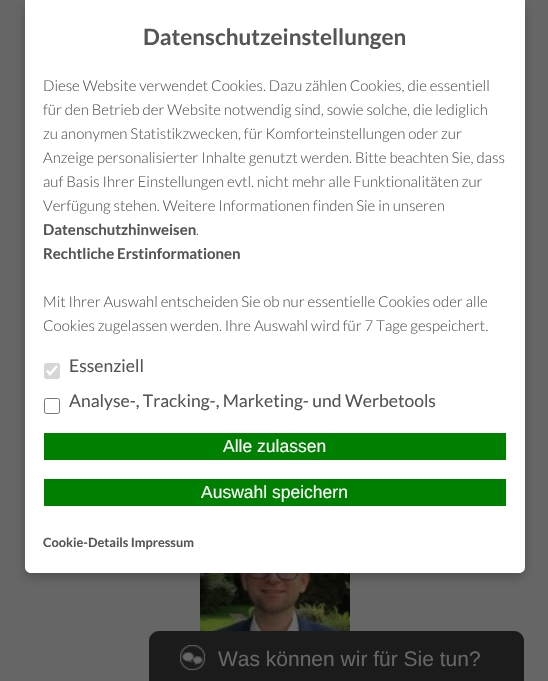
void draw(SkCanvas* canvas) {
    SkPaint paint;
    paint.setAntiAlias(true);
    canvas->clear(0xFF666666);
    canvas->drawImageRect(SkImages::DeferredFromEncodedData(SkData::MakeFromFileName("img1.png")), SkRect::MakeXYWH(200, 573, 150, 58), SkSamplingOptions());
    paint.setColor(0x33000000);
    paint.setMaskFilter(SkMaskFilter::MakeBlur(kNormal_SkBlurStyle, 5));
    canvas->drawRoundRect(SkRect::MakeXYWH(25, 5, 500, 573), 6, 6, paint);
    paint.setMaskFilter(nullptr);
    paint.setColor(0xFFFFFFFF);
    canvas->drawPath(SkPathBuilder().moveTo(25, 0).lineTo(525, 0).lineTo(525, 567).cubicTo(525, 570.5f, 522.5f, 573, 519, 573).lineTo(31, 573).cubicTo(27.5f, 573, 25, 570.5f, 25, 567).close().detach(), paint);
    SkFont font1(fontMgr->matchFamilyStyle("Lato", SkFontStyle::Bold()), 22.5f);
    font1.setSubpixel(true);
    paint.setColor(0xFF555555);
    canvas->drawString("Datenschutzeinstellungen", 143, 45, font1, paint);
    SkFont font2(fontMgr->matchFamilyStyle("Lato", SkFontStyle(300, SkFontStyle::kNormal_Width, SkFontStyle::kUpright_Slant)), 15);
    font2.setSubpixel(true);
    canvas->drawString("Diese Website verwendet Cookies. Dazu zählen Cookies, die essentiell", 43, 91, font2, paint);
    canvas->drawString("für den Betrieb der Website notwendig sind, sowie solche, die lediglich", 43, 115, font2, paint);
    canvas->drawString("zu anonymen Statistikzwecken, für Komforteinstellungen oder zur", 43, 139, font2, paint);
    canvas->drawString("Anzeige personalisierter Inhalte genutzt werden. Bitte beachten Sie, dass", 43, 163, font2, paint);
    canvas->drawString("auf Basis Ihrer Einstellungen evtl. nicht mehr alle Funktionalitäten zur", 43, 187, font2, paint);
    canvas->drawString("Verfügung stehen. Weitere Informationen finden Sie in unseren", 43, 211, font2, paint);
    SkFont font3(fontMgr->matchFamilyStyle("Lato", SkFontStyle::Bold()), 15);
    font3.setSubpixel(true);
    canvas->drawString("Datenschutzhinweisen", 43, 235, font3, paint);
    canvas->drawString(".", 196, 235, font2, paint);
    canvas->drawString("Rechtliche Erstinformationen", 43, 259, font3, paint);
    canvas->drawString("Mit Ihrer Auswahl entscheiden Sie ob nur essentielle Cookies oder alle", 43, 307, font2, paint);
    canvas->drawString("Cookies zugelassen werden. Ihre Auswahl wird für 7 Tage gespeichert.", 43, 331, font2, paint);
    paint.setColor(0xFFD6D6D6);
    canvas->drawRoundRect(SkRect::MakeXYWH(44, 363, 16, 16), 2.5f, 2.5f, paint);
    paint.setStyle(SkPaint::kStroke_Style);
    paint.setStrokeWidth(2.6f);
    paint.setColor(0xFFFFFFFF);
    canvas->drawPath(SkPathBuilder().moveTo(47, 370.5f).lineTo(50, 374).lineTo(57, 366).detach(), paint);
    SkFont font4(fontMgr->matchFamilyStyle("Lato", SkFontStyle::Normal()), 17.5f);
    font4.setSubpixel(true);
    paint.setStyle(SkPaint::kFill_Style);
    paint.setColor(0xFF555555);
    canvas->drawString("Essenziell", 69, 372, font4, paint);
    paint.setStyle(SkPaint::kStroke_Style);
    paint.setStrokeWidth(1);
    paint.setColor(0xFF767676);
    canvas->drawRoundRect(SkRect::MakeXYWH(44.5f, 398.5f, 15, 15), 2, 2, paint);
    paint.setStyle(SkPaint::kFill_Style);
    paint.setColor(0xFF555555);
    canvas->drawString("Analyse-, Tracking-, Marketing- und Werbetools", 69, 407, font4, paint);
    paint.setColor(0xFF008000);
    canvas->drawRect(SkRect::MakeXYWH(44, 433, 462, 27), paint);
    SkFont font5(fontMgr->matchFamilyStyle("Liberation Sans", SkFontStyle::Normal()), 17.5f);
    font5.setSubpixel(true);
    paint.setColor(0xFFFFFFFF);
    canvas->drawString("Alle zulassen", 223, 452, font5, paint);
    paint.setColor(0xFF008000);
    canvas->drawRect(SkRect::MakeXYWH(44, 479, 462, 27), paint);
    paint.setColor(0xFFFFFFFF);
    canvas->drawString("Auswahl speichern", 201, 498, font5, paint);
    SkFont font6(fontMgr->matchFamilyStyle("Lato", SkFontStyle::Bold()), 12.75f);
    font6.setSubpixel(true);
    paint.setColor(0xFF555555);
    canvas->drawString("Cookie-Details Impressum", 43, 547, font6, paint);
    paint.setColor(0xFF1B1B1B);
    canvas->drawPath(SkPathBuilder().moveTo(159, 631).lineTo(514, 631).cubicTo(519.5f, 631, 524, 635.5f, 524, 641).lineTo(524, 681).lineTo(149, 681).lineTo(149, 641).cubicTo(149, 635.5f, 153.5f, 631, 159, 631).close().detach(), paint);
    canvas->drawImageRect(SkImages::DeferredFromEncodedData(SkData::MakeFromFileName("img2.png")), SkRect::MakeXYWH(180, 645, 26, 26), SkSamplingOptions());
    SkFont font7(fontMgr->matchFamilyStyle("Liberation Sans", SkFontStyle::Normal()), 21);
    font7.setSubpixel(true);
    paint.setColor(0xFF666666);
    canvas->drawString("Was können wir für Sie tun?", 218, 666, font7, paint);
}
